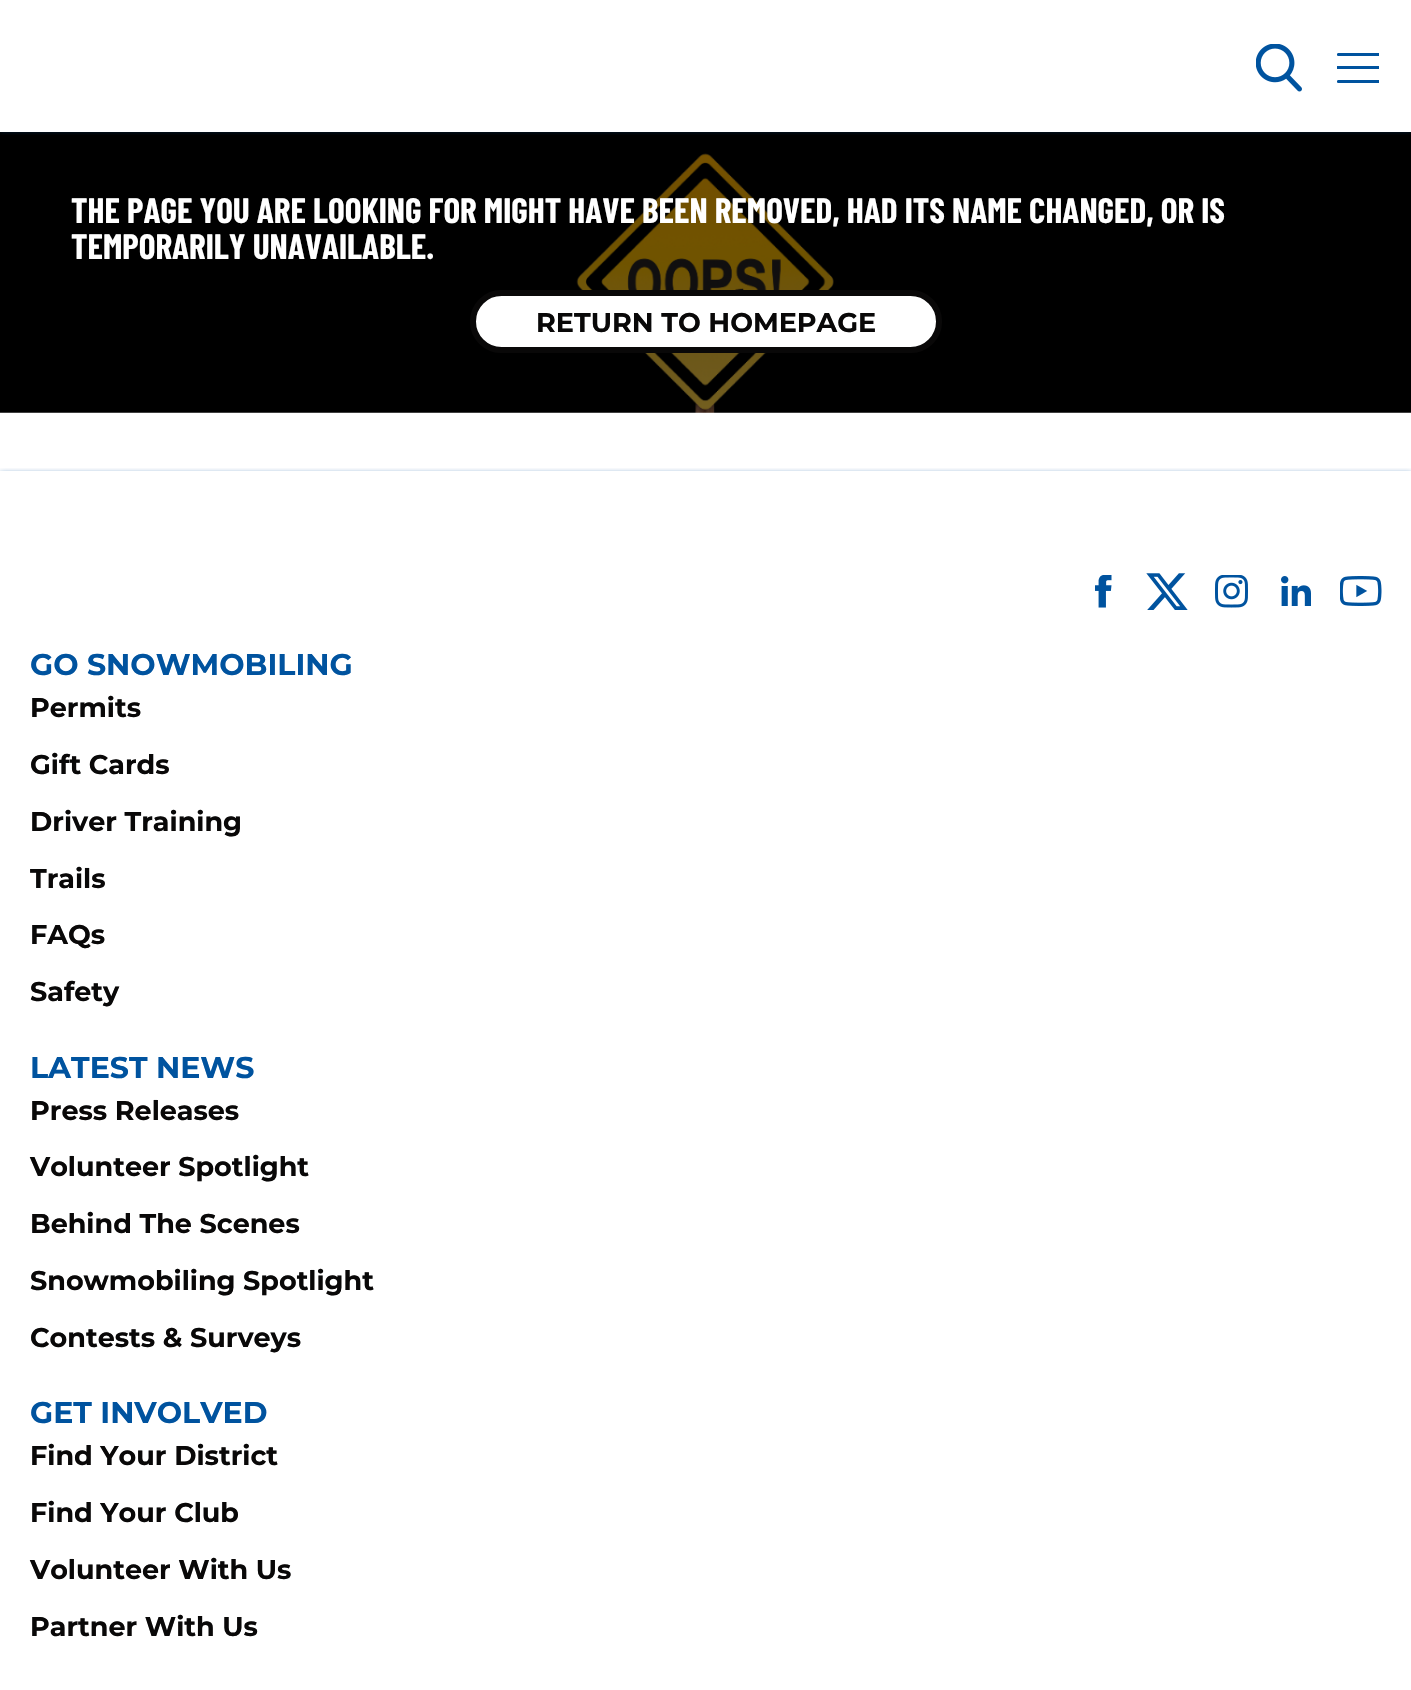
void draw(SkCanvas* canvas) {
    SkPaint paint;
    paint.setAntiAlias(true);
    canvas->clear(0xFFFFFFFF);
    canvas->drawImageRect(SkImages::DeferredFromEncodedData(SkData::MakeFromFileName("img2.png")), SkRect::MakeXYWH(0, 132, 1411, 281), SkSamplingOptions());
    canvas->save();
    canvas->clipRect(SkRect::MakeXYWH(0, 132, 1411, 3));
    paint.setColor(0xFF00539F);
    paint.setMaskFilter(SkMaskFilter::MakeBlur(kNormal_SkBlurStyle, 3));
    canvas->drawRect(SkRect::MakeXYWH(0, -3, 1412, 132), paint);
    paint.setMaskFilter(nullptr);
    canvas->restore();
    canvas->drawImageRect(SkImages::DeferredFromEncodedData(SkData::MakeFromFileName("img1.png")), SkRect::MakeXYWH(1256, 44, 46, 48), SkSamplingOptions());
    canvas->drawPath(SkPathBuilder().moveTo(1338.5f, 53).lineTo(1379, 53).lineTo(1379, 56).lineTo(1338.5f, 56).cubicTo(1337.5f, 56, 1337, 55.5f, 1337, 54.5f).cubicTo(1337, 53.5f, 1337.5f, 53, 1338.5f, 53).close().detach(), paint);
    canvas->drawRect(SkRect::MakeXYWH(1337, 66, 42, 3), paint);
    canvas->drawPath(SkPathBuilder().moveTo(1338.5f, 80).lineTo(1379, 80).lineTo(1379, 83).lineTo(1338.5f, 83).cubicTo(1337.5f, 83, 1337, 82.5f, 1337, 81.5f).cubicTo(1337, 80.5f, 1337.5f, 80, 1338.5f, 80).close().detach(), paint);
    canvas->drawImageRect(SkImages::DeferredFromEncodedData(SkData::MakeFromFileName("img3.png")), SkRect::MakeXYWH(0, 163, 1411, 250), SkSamplingOptions());
    SkFont font1(fontMgr->matchFamilyStyle("Barlow Condensed", SkFontStyle::Bold()), 35.3f);
    font1.setSubpixel(true);
    paint.setColor(0xFFFFFFFF);
    canvas->drawString("THE PAGE YOU ARE LOOKING FOR MIGHT HAVE BEEN REMOVED, HAD ITS NAME CHANGED, OR IS", 71, 223, font1, paint);
    canvas->drawString("TEMPORARILY UNAVAILABLE.", 71, 259, font1, paint);
    canvas->drawRoundRect(SkRect::MakeXYWH(473, 293, 466, 57), 28.5f, 28.5f, paint);
    paint.setStyle(SkPaint::kStroke_Style);
    paint.setStrokeWidth(6);
    paint.setColor(0xFF090808);
    canvas->drawRoundRect(SkRect::MakeXYWH(473, 293, 466, 57), 28.5f, 28.5f, paint);
    SkFont font2(fontMgr->matchFamilyStyle("Montserrat", SkFontStyle::Bold()), 27);
    font2.setSubpixel(true);
    paint.setStyle(SkPaint::kFill_Style);
    canvas->drawString("RETURN TO HOMEPAGE", 536, 332, font2, paint);
    canvas->save();
    canvas->clipRect(SkRect::MakeXYWH(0, 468, 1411, 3));
    paint.setColor(0xFF00539F);
    paint.setMaskFilter(SkMaskFilter::MakeBlur(kNormal_SkBlurStyle, 3));
    canvas->drawRect(SkRect::MakeXYWH(0, 474, 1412, 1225), paint);
    paint.setMaskFilter(nullptr);
    canvas->restore();
    canvas->drawImageRect(SkImages::DeferredFromEncodedData(SkData::MakeFromFileName("img4.png")), SkRect::MakeXYWH(1095, 575, 17, 33), SkSamplingOptions());
    canvas->drawImageRect(SkImages::DeferredFromEncodedData(SkData::MakeFromFileName("img5.png")), SkRect::MakeXYWH(1146, 573, 42, 37), SkSamplingOptions());
    canvas->drawImageRect(SkImages::DeferredFromEncodedData(SkData::MakeFromFileName("img6.png")), SkRect::MakeXYWH(1215, 575, 33, 33), SkSamplingOptions());
    canvas->drawImageRect(SkImages::DeferredFromEncodedData(SkData::MakeFromFileName("img7.png")), SkRect::MakeXYWH(1281, 576, 30, 30), SkSamplingOptions());
    canvas->drawImageRect(SkImages::DeferredFromEncodedData(SkData::MakeFromFileName("img8.png")), SkRect::MakeXYWH(1340, 576, 42, 30), SkSamplingOptions());
    SkFont font3(fontMgr->matchFamilyStyle("Montserrat", SkFontStyle::Bold()), 30);
    font3.setSubpixel(true);
    canvas->drawString("GO SNOWMOBILING", 30, 675, font3, paint);
    paint.setColor(0xFF090808);
    canvas->drawString("Permits", 30, 717, font2, paint);
    canvas->drawString("Gift Cards", 30, 774, font2, paint);
    canvas->drawString("Driver Training", 30, 831, font2, paint);
    canvas->drawString("Trails", 30, 888, font2, paint);
    canvas->drawString("FAQs", 30, 944, font2, paint);
    canvas->drawString("Safety", 30, 1001, font2, paint);
    paint.setColor(0xFF00539F);
    canvas->drawString("LATEST NEWS", 30, 1078, font3, paint);
    paint.setColor(0xFF090808);
    canvas->drawString("Press Releases", 30, 1120, font2, paint);
    canvas->drawString("Volunteer Spotlight", 30, 1176, font2, paint);
    canvas->drawString("Behind The Scenes", 30, 1233, font2, paint);
    canvas->drawString("Snowmobiling Spotlight", 30, 1290, font2, paint);
    canvas->drawString("Contests & Surveys", 30, 1347, font2, paint);
    paint.setColor(0xFF00539F);
    canvas->drawString("GET INVOLVED", 30, 1423, font3, paint);
    paint.setColor(0xFF090808);
    canvas->drawString("Find Your District", 30, 1465, font2, paint);
    canvas->drawString("Find Your Club", 30, 1522, font2, paint);
    canvas->drawString("Volunteer With Us", 30, 1579, font2, paint);
    canvas->drawString("Partner With Us", 30, 1636, font2, paint);
}
